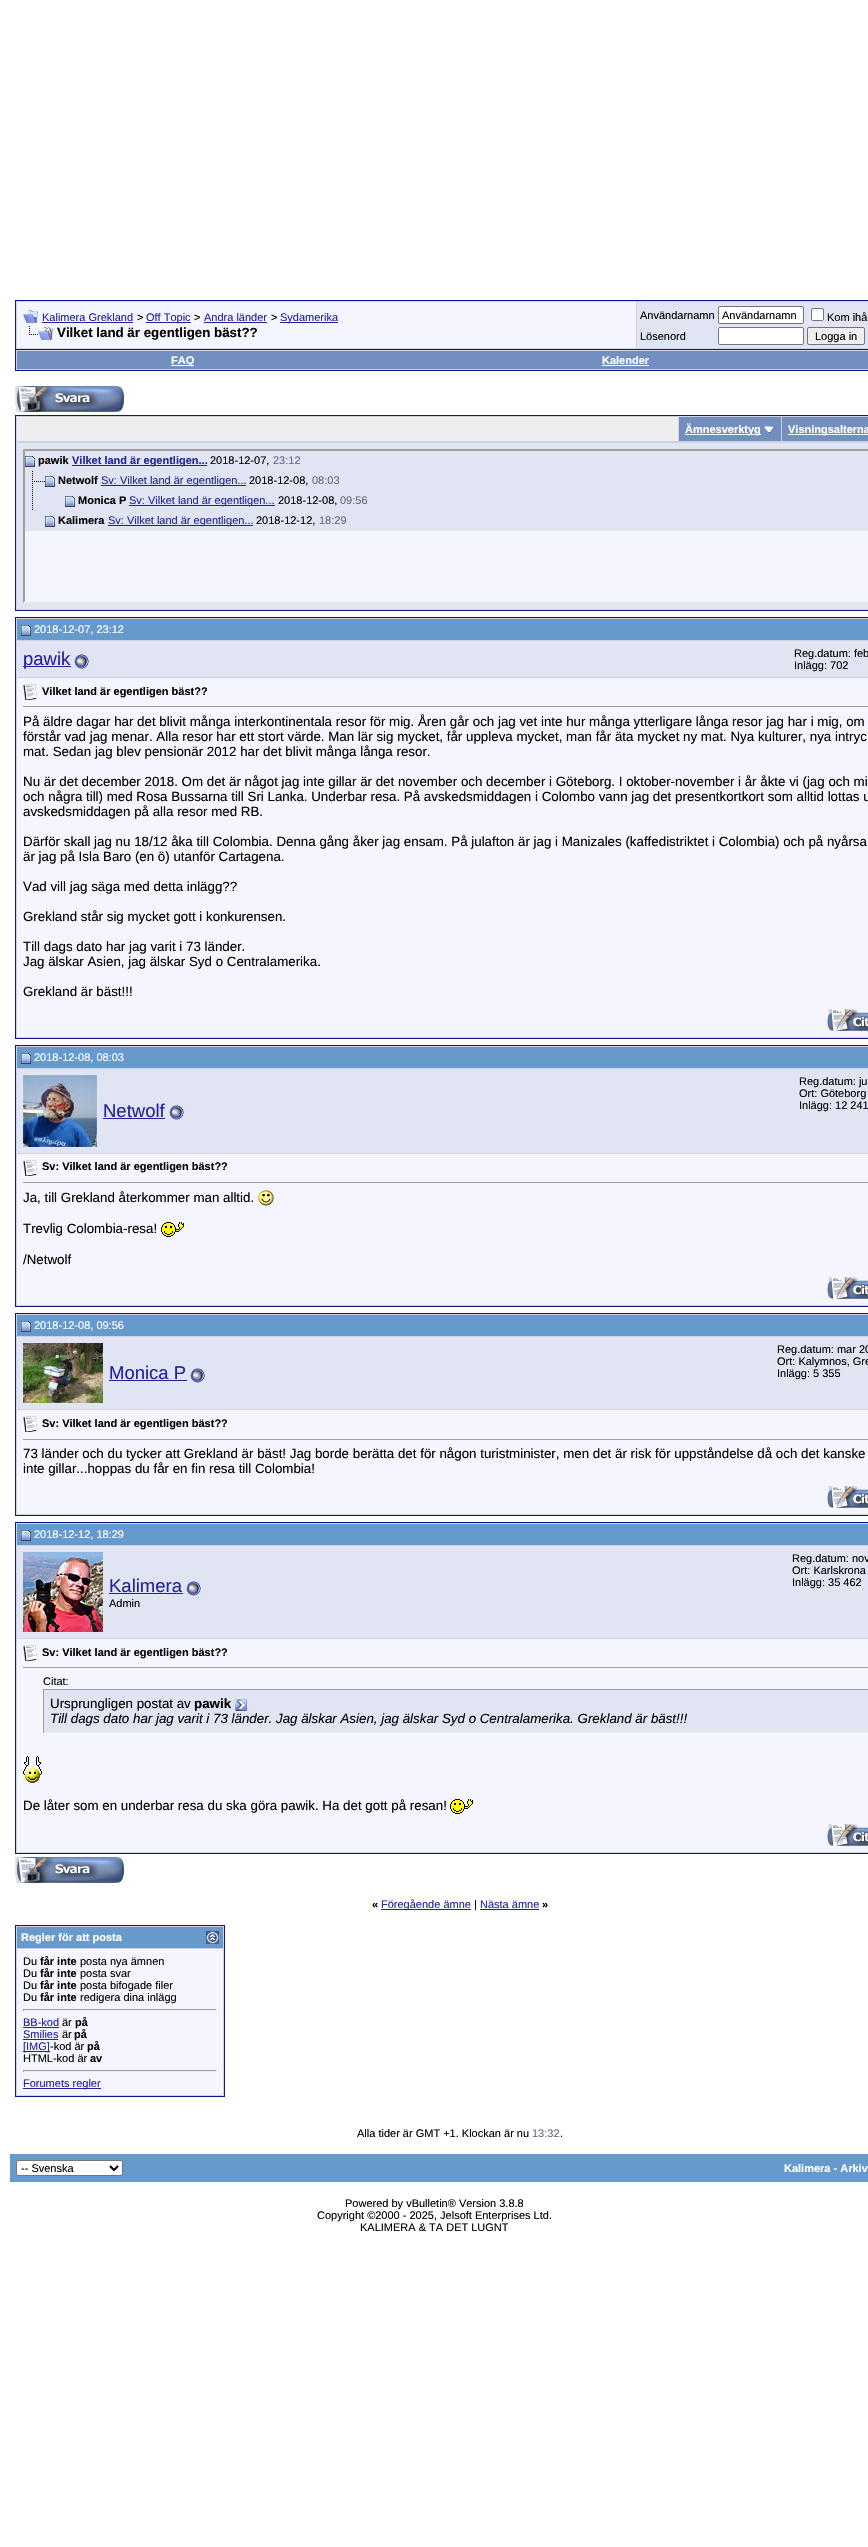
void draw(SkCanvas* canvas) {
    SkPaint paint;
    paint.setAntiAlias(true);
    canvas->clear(0xFFFFFFFF);
    paint.setColor(0xFFD1D1E1);
    canvas->drawRect(SkRect::MakeXYWH(15.5f, 300.5f, 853, 49), paint);
    paint.setStyle(SkPaint::kStroke_Style);
    paint.setStrokeWidth(1);
    paint.setColor(0xFF0B198C);
    canvas->drawRect(SkRect::MakeXYWH(15.5f, 300.5f, 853, 49), paint);
    paint.setStyle(SkPaint::kFill_Style);
    paint.setColor(0xFFF5F5FF);
    canvas->drawRect(SkRect::MakeXYWH(17, 302, 619, 46), paint);
    canvas->drawImageRect(SkImages::DeferredFromEncodedData(SkData::MakeFromFileName("img1.png")), SkRect::MakeXYWH(23, 310, 15, 13), SkSamplingOptions());
    SkFont font1(fontMgr->matchFamilyStyle("Liberation Sans", SkFontStyle::Normal()), 11);
    font1.setSubpixel(true);
    paint.setColor(0xFF22229C);
    canvas->drawString("Kalimera Grekland", 42, 321, font1, paint);
    canvas->drawRect(SkRect::MakeXYWH(42, 322, 91, 1), paint);
    paint.setColor(0xFF000000);
    canvas->drawString(">", 137, 321, font1, paint);
    paint.setColor(0xFF22229C);
    canvas->drawRect(SkRect::MakeXYWH(146, 322, 45, 1), paint);
    canvas->drawString("Off Topic", 146, 321, font1, paint);
    paint.setColor(0xFF000000);
    canvas->drawString(">", 194, 321, font1, paint);
    paint.setColor(0xFF22229C);
    canvas->drawString("Andra länder", 204, 321, font1, paint);
    canvas->drawRect(SkRect::MakeXYWH(204, 322, 63, 1), paint);
    paint.setColor(0xFF000000);
    canvas->drawString(">", 271, 321, font1, paint);
    paint.setColor(0xFF22229C);
    canvas->drawRect(SkRect::MakeXYWH(280, 322, 58, 1), paint);
    canvas->drawString("Sydamerika", 280, 321, font1, paint);
    canvas->drawImageRect(SkImages::DeferredFromEncodedData(SkData::MakeFromFileName("img2.png")), SkRect::MakeXYWH(29, 326, 24, 14), SkSamplingOptions());
    SkFont font2(fontMgr->matchFamilyStyle("Liberation Sans", SkFontStyle::Bold()), 13.33f);
    font2.setSubpixel(true);
    paint.setColor(0xFF000000);
    canvas->drawString("Vilket land är egentligen bäst?\077", 57, 337, font2, paint);
    paint.setColor(0xFFE1E4F2);
    canvas->drawRect(SkRect::MakeXYWH(637, 302, 231, 46), paint);
    paint.setColor(0xFF000000);
    canvas->drawString("Användarnamn", 640, 319, font1, paint);
    paint.setColor(0xFFFFFFFF);
    canvas->drawRoundRect(SkRect::MakeXYWH(718.5f, 306.5f, 85, 17), 1.5f, 1.5f, paint);
    paint.setStyle(SkPaint::kStroke_Style);
    paint.setColor(0xFF767676);
    canvas->drawRoundRect(SkRect::MakeXYWH(718.5f, 306.5f, 85, 17), 1.5f, 1.5f, paint);
    paint.setStyle(SkPaint::kFill_Style);
    paint.setColor(0xFF000000);
    canvas->drawString("Användarnamn", 722, 319, font1, paint);
    paint.setColor(0xFFFFFFFF);
    canvas->drawRoundRect(SkRect::MakeXYWH(811.5f, 308.5f, 12, 12), 1.5f, 1.5f, paint);
    paint.setStyle(SkPaint::kStroke_Style);
    paint.setColor(0xFF767676);
    canvas->drawRoundRect(SkRect::MakeXYWH(811.5f, 308.5f, 12, 12), 1.5f, 1.5f, paint);
    paint.setStyle(SkPaint::kFill_Style);
    paint.setColor(0xFF000000);
    canvas->drawString("Kom ihå", 827, 321, font1, paint);
    canvas->drawString("Lösenord", 640, 340, font1, paint);
    paint.setColor(0xFFFFFFFF);
    canvas->drawRoundRect(SkRect::MakeXYWH(718.5f, 327.5f, 85, 17), 1.5f, 1.5f, paint);
    paint.setStyle(SkPaint::kStroke_Style);
    paint.setColor(0xFF767676);
    canvas->drawRoundRect(SkRect::MakeXYWH(718.5f, 327.5f, 85, 17), 1.5f, 1.5f, paint);
    paint.setStyle(SkPaint::kFill_Style);
    paint.setColor(0xFFEFEFEF);
    canvas->drawRoundRect(SkRect::MakeXYWH(807.5f, 327.5f, 57, 17), 1.5f, 1.5f, paint);
    paint.setStyle(SkPaint::kStroke_Style);
    paint.setColor(0xFF767676);
    canvas->drawRoundRect(SkRect::MakeXYWH(807.5f, 327.5f, 57, 17), 1.5f, 1.5f, paint);
    paint.setStyle(SkPaint::kFill_Style);
    paint.setColor(0xFF000000);
    canvas->drawString("Logga in", 815, 340, font1, paint);
    paint.setColor(0xFFD1D1E1);
    canvas->drawRect(SkRect::MakeXYWH(16, 350, 852, 20), paint);
    paint.setColor(0xFF0B198C);
    canvas->drawRect(SkRect::MakeXYWH(15, 370, 853, 1), paint);
    canvas->drawRect(SkRect::MakeXYWH(15, 350, 1, 21), paint);
    paint.setColor(0xFF738FBF);
    canvas->drawRect(SkRect::MakeXYWH(17, 351, 851, 18), paint);
    paint.setColor(0xFFFFFFFF);
    canvas->drawRect(SkRect::MakeXYWH(171, 365, 23, 1), paint);
    SkFont font3(fontMgr->matchFamilyStyle("Liberation Sans", SkFontStyle::Bold()), 11);
    font3.setSubpixel(true);
    canvas->drawString("FAQ", 171, 364, font3, paint);
    canvas->drawString("Kalender", 602, 364, font3, paint);
    canvas->drawRect(SkRect::MakeXYWH(602, 365, 47, 1), paint);
    canvas->drawImageRect(SkImages::DeferredFromEncodedData(SkData::MakeFromFileName("img3.png")), SkRect::MakeXYWH(15, 386, 109, 26), SkSamplingOptions());
    paint.setColor(0xFFD1D1E1);
    canvas->drawRect(SkRect::MakeXYWH(16, 416, 852, 194), paint);
    paint.setColor(0xFF0B198C);
    canvas->drawRect(SkRect::MakeXYWH(15, 415, 853, 1), paint);
    canvas->drawRect(SkRect::MakeXYWH(15, 415, 1, 27), paint);
    paint.setColor(0xFFEEEEEE);
    canvas->drawRect(SkRect::MakeXYWH(17, 417, 661, 24), paint);
    paint.setColor(0xFF738FBF);
    canvas->drawRect(SkRect::MakeXYWH(679, 417, 102, 24), paint);
    paint.setColor(0xFFFFFFFF);
    canvas->drawRect(SkRect::MakeXYWH(685, 434, 76, 1), paint);
    canvas->drawString("Ämnesverktyg", 685, 433, font3, paint);
    canvas->drawImageRect(SkImages::DeferredFromEncodedData(SkData::MakeFromFileName("img4.png")), SkRect::MakeXYWH(764, 426, 11, 7), SkSamplingOptions());
    paint.setColor(0xFF738FBF);
    canvas->drawRect(SkRect::MakeXYWH(782, 417, 86, 24), paint);
    paint.setColor(0xFFFFFFFF);
    canvas->drawRect(SkRect::MakeXYWH(788, 434, 80, 1), paint);
    canvas->drawString("Visningsalterna", 788, 433, font3, paint);
    paint.setColor(0xFF0B198C);
    canvas->drawRect(SkRect::MakeXYWH(15, 610, 853, 1), paint);
    canvas->drawRect(SkRect::MakeXYWH(15, 442, 1, 169), paint);
    paint.setColor(0xFFE1E4F2);
    canvas->drawRect(SkRect::MakeXYWH(17, 443, 851, 166), paint);
    paint.setColor(0xFFF5F5FF);
    canvas->drawRect(SkRect::MakeXYWH(23, 449, 845, 154), paint);
    paint.setColor(0xFF9F9F9F);
    canvas->drawPath(SkPathBuilder().moveTo(23, 449).lineTo(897, 449).lineTo(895, 451).lineTo(25, 451).close().detach(), paint);
    paint.setColor(0xFFEEEEEE);
    canvas->drawPath(SkPathBuilder().moveTo(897, 603).lineTo(23, 603).lineTo(25, 601).lineTo(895, 601).close().detach(), paint);
    paint.setColor(0xFF9F9F9F);
    canvas->drawPath(SkPathBuilder().moveTo(23, 603).lineTo(23, 449).lineTo(25, 451).lineTo(25, 601).close().detach(), paint);
    paint.setColor(0xFFE1E4F2);
    canvas->drawRect(SkRect::MakeXYWH(25, 451, 843, 80), paint);
    canvas->drawImageRect(SkImages::DeferredFromEncodedData(SkData::MakeFromFileName("img5.png")), SkRect::MakeXYWH(25, 456, 10, 11), SkSamplingOptions());
    paint.setColor(0xFF000000);
    canvas->drawString("pawik", 38, 464, font3, paint);
    paint.setColor(0xFF22229C);
    canvas->drawRect(SkRect::MakeXYWH(72, 465, 135, 1), paint);
    canvas->drawString("Vilket land är egentligen...", 72, 464, font3, paint);
    paint.setColor(0xFF000000);
    canvas->drawString("2018-12-07,", 210, 464, font1, paint);
    paint.setColor(0xFF666686);
    canvas->drawString("23:12", 273, 464, font1, paint);
    canvas->drawImageRect(SkImages::DeferredFromEncodedData(SkData::MakeFromFileName("img6.png")), SkRect::MakeXYWH(32, 471, 13, 19), SkSamplingOptions());
    canvas->drawImageRect(SkImages::DeferredFromEncodedData(SkData::MakeFromFileName("img5.png")), SkRect::MakeXYWH(45, 476, 10, 11), SkSamplingOptions());
    paint.setColor(0xFF000000);
    canvas->drawString("Netwolf", 58, 484, font3, paint);
    paint.setColor(0xFF22229C);
    canvas->drawRect(SkRect::MakeXYWH(101, 485, 145, 1), paint);
    canvas->drawString("Sv: Vilket land är egentligen...", 101, 484, font1, paint);
    paint.setColor(0xFF000000);
    canvas->drawString("2018-12-08,", 249, 484, font1, paint);
    paint.setColor(0xFF666686);
    canvas->drawString("08:03", 312, 484, font1, paint);
    canvas->drawImageRect(SkImages::DeferredFromEncodedData(SkData::MakeFromFileName("img7.png")), SkRect::MakeXYWH(32, 491, 1, 19), SkSamplingOptions());
    canvas->drawImageRect(SkImages::DeferredFromEncodedData(SkData::MakeFromFileName("img5.png")), SkRect::MakeXYWH(65, 496, 10, 11), SkSamplingOptions());
    paint.setColor(0xFF000000);
    canvas->drawString("Monica P", 78, 504, font3, paint);
    paint.setColor(0xFF22229C);
    canvas->drawRect(SkRect::MakeXYWH(129, 505, 146, 1), paint);
    canvas->drawString("Sv: Vilket land är egentligen...", 129, 504, font1, paint);
    paint.setColor(0xFF000000);
    canvas->drawString("2018-12-08,", 278, 504, font1, paint);
    paint.setColor(0xFF666686);
    canvas->drawString("09:56", 340, 504, font1, paint);
    canvas->drawImageRect(SkImages::DeferredFromEncodedData(SkData::MakeFromFileName("img5.png")), SkRect::MakeXYWH(45, 516, 10, 11), SkSamplingOptions());
    paint.setColor(0xFF000000);
    canvas->drawString("Kalimera", 58, 524, font3, paint);
    paint.setColor(0xFF22229C);
    canvas->drawRect(SkRect::MakeXYWH(108, 525, 145, 1), paint);
    canvas->drawString("Sv: Vilket land är egentligen...", 108, 524, font1, paint);
    paint.setColor(0xFF000000);
    canvas->drawString("2018-12-12,", 256, 524, font1, paint);
    paint.setColor(0xFF666686);
    canvas->drawString("18:29", 319, 524, font1, paint);
    paint.setColor(0xFFD1D1E1);
    canvas->drawRect(SkRect::MakeXYWH(15.5f, 617.5f, 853, 421), paint);
    paint.setStyle(SkPaint::kStroke_Style);
    paint.setColor(0xFF0B198C);
    canvas->drawRect(SkRect::MakeXYWH(15.5f, 617.5f, 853, 421), paint);
    paint.setStyle(SkPaint::kFill_Style);
    paint.setColor(0xFF6699CC);
    canvas->drawRect(SkRect::MakeXYWH(17, 619, 851, 21), paint);
    canvas->drawImageRect(SkImages::DeferredFromEncodedData(SkData::MakeFromFileName("img8.png")), SkRect::MakeXYWH(21, 625, 10, 11), SkSamplingOptions());
    paint.setColor(0xFFFFFFFF);
    canvas->drawString("2018-12-07, 23:12", 34, 633, font1, paint);
    paint.setColor(0xFFE1E4F2);
    canvas->drawRect(SkRect::MakeXYWH(17, 641, 851, 36), paint);
    paint.setColor(0xFF22229C);
    canvas->drawRect(SkRect::MakeXYWH(23, 666, 48, 1), paint);
    SkFont font4(fontMgr->matchFamilyStyle("Liberation Sans", SkFontStyle::Normal()), 18.5f);
    font4.setSubpixel(true);
    canvas->drawString("pawik", 23, 665, font4, paint);
    canvas->drawImageRect(SkImages::DeferredFromEncodedData(SkData::MakeFromFileName("img9.png")), SkRect::MakeXYWH(74, 654, 15, 15), SkSamplingOptions());
    paint.setColor(0xFF000000);
    canvas->drawString("Reg.datum: feb", 794, 657, font1, paint);
    canvas->drawString("Inlägg: 702", 794, 669, font1, paint);
    paint.setColor(0xFFF5F5FF);
    canvas->drawRect(SkRect::MakeXYWH(17, 678, 851, 359), paint);
    canvas->drawImageRect(SkImages::DeferredFromEncodedData(SkData::MakeFromFileName("img10.png")), SkRect::MakeXYWH(23, 684, 15, 16), SkSamplingOptions());
    paint.setColor(0xFF000000);
    canvas->drawString("Vilket land är egentligen bäst?\077", 42, 695, font3, paint);
    paint.setColor(0xFF9F9F9F);
    canvas->drawRect(SkRect::MakeXYWH(23, 706, 845, 1), paint);
    SkFont font5(fontMgr->matchFamilyStyle("Liberation Sans", SkFontStyle::Normal()), 13.33f);
    font5.setSubpixel(true);
    paint.setColor(0xFF000000);
    canvas->drawString("På äldre dagar har det blivit många interkontinentala resor för mig. Åren går och jag vet inte hur många ytterligare långa resor jag har i mig, om", 23, 726, font5, paint);
    canvas->drawString("förstår vad jag menar. Alla resor har ett stort värde. Man lär sig mycket, får uppleva mycket, man får äta mycket ny mat. Nya kulturer, nya intryc", 23, 741, font5, paint);
    canvas->drawString("mat. Sedan jag blev pensionär 2012 har det blivit många långa resor.", 23, 756, font5, paint);
    canvas->drawString("Nu är det december 2018. Om det är något jag inte gillar är det november och december i Göteborg. I oktober-november i år åkte vi (jag och mi", 23, 786, font5, paint);
    canvas->drawString("och några till) med Rosa Bussarna till Sri Lanka. Underbar resa. På avskedsmiddagen i Colombo vann jag det presentkortkort som alltid lottas u", 23, 801, font5, paint);
    canvas->drawString("avskedsmiddagen på alla resor med RB.", 23, 816, font5, paint);
    canvas->drawString("Därför skall jag nu 18/12 åka till Colombia. Denna gång åker jag ensam. På julafton är jag i Manizales (kaffedistriktet i Colombia) och på nyårsa", 23, 846, font5, paint);
    canvas->drawString("är jag på Isla Baro (en ö) utanför Cartagena.", 23, 861, font5, paint);
    canvas->drawString("Vad vill jag säga med detta inlägg?\077", 23, 891, font5, paint);
    canvas->drawString("Grekland står sig mycket gott i konkurensen.", 23, 921, font5, paint);
    canvas->drawString("Till dags dato har jag varit i 73 länder.", 23, 951, font5, paint);
    canvas->drawString("Jag älskar Asien, jag älskar Syd o Centralamerika.", 23, 966, font5, paint);
    canvas->drawString("Grekland är bäst!!!", 23, 996, font5, paint);
    canvas->drawImageRect(SkImages::DeferredFromEncodedData(SkData::MakeFromFileName("img11.png")), SkRect::MakeXYWH(827, 1009, 41, 22), SkSamplingOptions());
    paint.setColor(0xFFD1D1E1);
    canvas->drawRect(SkRect::MakeXYWH(15.5f, 1045.5f, 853, 261), paint);
    paint.setStyle(SkPaint::kStroke_Style);
    paint.setColor(0xFF0B198C);
    canvas->drawRect(SkRect::MakeXYWH(15.5f, 1045.5f, 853, 261), paint);
    paint.setStyle(SkPaint::kFill_Style);
    paint.setColor(0xFF6699CC);
    canvas->drawRect(SkRect::MakeXYWH(17, 1047, 851, 21), paint);
    canvas->drawImageRect(SkImages::DeferredFromEncodedData(SkData::MakeFromFileName("img8.png")), SkRect::MakeXYWH(21, 1053, 10, 11), SkSamplingOptions());
    paint.setColor(0xFFFFFFFF);
    canvas->drawString("2018-12-08, 08:03", 34, 1061, font1, paint);
    paint.setColor(0xFFE1E4F2);
    canvas->drawRect(SkRect::MakeXYWH(17, 1069, 851, 84), paint);
    canvas->drawImageRect(SkImages::DeferredFromEncodedData(SkData::MakeFromFileName("img12.png")), SkRect::MakeXYWH(23, 1075, 74, 72), SkSamplingOptions());
    paint.setColor(0xFF22229C);
    canvas->drawString("Netwolf", 103, 1117, font4, paint);
    canvas->drawRect(SkRect::MakeXYWH(103, 1118, 62, 1), paint);
    canvas->drawImageRect(SkImages::DeferredFromEncodedData(SkData::MakeFromFileName("img9.png")), SkRect::MakeXYWH(169, 1105, 15, 15), SkSamplingOptions());
    paint.setColor(0xFF000000);
    canvas->drawString("Reg.datum: ju", 799, 1085, font1, paint);
    canvas->drawString("Ort: Göteborg", 799, 1097, font1, paint);
    canvas->drawString("Inlägg: 12 241", 799, 1109, font1, paint);
    paint.setColor(0xFFF5F5FF);
    canvas->drawRect(SkRect::MakeXYWH(17, 1154, 851, 151), paint);
    canvas->drawImageRect(SkImages::DeferredFromEncodedData(SkData::MakeFromFileName("img10.png")), SkRect::MakeXYWH(23, 1160, 15, 16), SkSamplingOptions());
    paint.setColor(0xFF000000);
    canvas->drawString("Sv: Vilket land är egentligen bäst?\077", 42, 1170, font3, paint);
    paint.setColor(0xFF9F9F9F);
    canvas->drawRect(SkRect::MakeXYWH(23, 1182, 845, 1), paint);
    paint.setColor(0xFF000000);
    canvas->drawString("Ja, till Grekland återkommer man alltid.", 23, 1202, font5, paint);
    canvas->drawImageRect(SkImages::DeferredFromEncodedData(SkData::MakeFromFileName("img13.png")), SkRect::MakeXYWH(258, 1190, 16, 16), SkSamplingOptions());
    canvas->drawString("Trevlig Colombia-resa!", 23, 1233, font5, paint);
    canvas->drawImageRect(SkImages::DeferredFromEncodedData(SkData::MakeFromFileName("img14.png")), SkRect::MakeXYWH(161, 1222, 23, 15), SkSamplingOptions());
    canvas->drawString("/Netwolf", 23, 1264, font5, paint);
    canvas->drawImageRect(SkImages::DeferredFromEncodedData(SkData::MakeFromFileName("img11.png")), SkRect::MakeXYWH(827, 1277, 41, 22), SkSamplingOptions());
    paint.setColor(0xFFD1D1E1);
    canvas->drawRect(SkRect::MakeXYWH(15.5f, 1313.5f, 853, 202), paint);
    paint.setStyle(SkPaint::kStroke_Style);
    paint.setColor(0xFF0B198C);
    canvas->drawRect(SkRect::MakeXYWH(15.5f, 1313.5f, 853, 202), paint);
    paint.setStyle(SkPaint::kFill_Style);
    paint.setColor(0xFF6699CC);
    canvas->drawRect(SkRect::MakeXYWH(17, 1315, 851, 21), paint);
    canvas->drawImageRect(SkImages::DeferredFromEncodedData(SkData::MakeFromFileName("img8.png")), SkRect::MakeXYWH(21, 1321, 10, 11), SkSamplingOptions());
    paint.setColor(0xFFFFFFFF);
    canvas->drawString("2018-12-08, 09:56", 34, 1329, font1, paint);
    paint.setColor(0xFFE1E4F2);
    canvas->drawRect(SkRect::MakeXYWH(17, 1337, 851, 72), paint);
    canvas->drawImageRect(SkImages::DeferredFromEncodedData(SkData::MakeFromFileName("img15.png")), SkRect::MakeXYWH(23, 1343, 80, 60), SkSamplingOptions());
    paint.setColor(0xFF22229C);
    canvas->drawString("Monica P", 109, 1379, font4, paint);
    canvas->drawRect(SkRect::MakeXYWH(109, 1380, 78, 1), paint);
    canvas->drawImageRect(SkImages::DeferredFromEncodedData(SkData::MakeFromFileName("img9.png")), SkRect::MakeXYWH(190, 1368, 15, 15), SkSamplingOptions());
    paint.setColor(0xFF000000);
    canvas->drawString("Reg.datum: mar 20", 777, 1353, font1, paint);
    canvas->drawString("Ort: Kalymnos, Gre", 777, 1365, font1, paint);
    canvas->drawString("Inlägg: 5 355", 777, 1377, font1, paint);
    paint.setColor(0xFFF5F5FF);
    canvas->drawRect(SkRect::MakeXYWH(17, 1410, 851, 104), paint);
    canvas->drawImageRect(SkImages::DeferredFromEncodedData(SkData::MakeFromFileName("img10.png")), SkRect::MakeXYWH(23, 1416, 15, 16), SkSamplingOptions());
    paint.setColor(0xFF000000);
    canvas->drawString("Sv: Vilket land är egentligen bäst?\077", 42, 1427, font3, paint);
    paint.setColor(0xFF9F9F9F);
    canvas->drawRect(SkRect::MakeXYWH(23, 1439, 845, 1), paint);
    paint.setColor(0xFF000000);
    canvas->drawString("73 länder och du tycker att Grekland är bäst! Jag borde berätta det för någon turistminister, men det är risk för uppståndelse då och det kanske", 23, 1458, font5, paint);
    canvas->drawString("inte gillar...hoppas du får en fin resa till Colombia!", 23, 1473, font5, paint);
    canvas->drawImageRect(SkImages::DeferredFromEncodedData(SkData::MakeFromFileName("img11.png")), SkRect::MakeXYWH(827, 1486, 41, 22), SkSamplingOptions());
    paint.setColor(0xFFD1D1E1);
    canvas->drawRect(SkRect::MakeXYWH(15.5f, 1522.5f, 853, 331), paint);
    paint.setStyle(SkPaint::kStroke_Style);
    paint.setColor(0xFF0B198C);
    canvas->drawRect(SkRect::MakeXYWH(15.5f, 1522.5f, 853, 331), paint);
    paint.setStyle(SkPaint::kFill_Style);
    paint.setColor(0xFF6699CC);
    canvas->drawRect(SkRect::MakeXYWH(17, 1524, 851, 21), paint);
    canvas->drawImageRect(SkImages::DeferredFromEncodedData(SkData::MakeFromFileName("img8.png")), SkRect::MakeXYWH(21, 1530, 10, 11), SkSamplingOptions());
    paint.setColor(0xFFFFFFFF);
    canvas->drawString("2018-12-12, 18:29", 34, 1538, font1, paint);
    paint.setColor(0xFFE1E4F2);
    canvas->drawRect(SkRect::MakeXYWH(17, 1546, 851, 92), paint);
    canvas->drawImageRect(SkImages::DeferredFromEncodedData(SkData::MakeFromFileName("img16.png")), SkRect::MakeXYWH(23, 1552, 80, 80), SkSamplingOptions());
    paint.setColor(0xFF000000);
    canvas->drawString("Reg.datum: nov", 792, 1562, font1, paint);
    canvas->drawString("Ort: Karlskrona", 792, 1574, font1, paint);
    canvas->drawString("Inlägg: 35 462", 792, 1586, font1, paint);
    paint.setColor(0xFF22229C);
    canvas->drawString("Kalimera", 109, 1592, font4, paint);
    canvas->drawRect(SkRect::MakeXYWH(109, 1593, 74, 1), paint);
    canvas->drawImageRect(SkImages::DeferredFromEncodedData(SkData::MakeFromFileName("img9.png")), SkRect::MakeXYWH(186, 1581, 15, 15), SkSamplingOptions());
    paint.setColor(0xFF000000);
    canvas->drawString("Admin", 109, 1607, font1, paint);
    paint.setColor(0xFFF5F5FF);
    canvas->drawRect(SkRect::MakeXYWH(17, 1639, 851, 213), paint);
    canvas->drawImageRect(SkImages::DeferredFromEncodedData(SkData::MakeFromFileName("img10.png")), SkRect::MakeXYWH(23, 1645, 15, 16), SkSamplingOptions());
    paint.setColor(0xFF000000);
    canvas->drawString("Sv: Vilket land är egentligen bäst?\077", 42, 1656, font3, paint);
    paint.setColor(0xFF9F9F9F);
    canvas->drawRect(SkRect::MakeXYWH(23, 1667, 845, 1), paint);
    paint.setColor(0xFF000000);
    canvas->drawString("Citat:", 43, 1685, font1, paint);
    paint.setColor(0xFFE1E4F2);
    canvas->drawRect(SkRect::MakeXYWH(44, 1690, 824, 42), paint);
    paint.setColor(0xFF9F9F9F);
    canvas->drawRect(SkRect::MakeXYWH(43, 1689, 825, 1), paint);
    paint.setColor(0xFFEEEEEE);
    canvas->drawRect(SkRect::MakeXYWH(43, 1732, 825, 1), paint);
    paint.setColor(0xFF9F9F9F);
    canvas->drawRect(SkRect::MakeXYWH(43, 1689, 1, 44), paint);
    paint.setColor(0xFF000000);
    canvas->drawString("Ursprungligen postat av", 50, 1708, font5, paint);
    canvas->drawString("pawik", 194, 1708, font2, paint);
    canvas->drawImageRect(SkImages::DeferredFromEncodedData(SkData::MakeFromFileName("img17.png")), SkRect::MakeXYWH(235, 1699, 12, 12), SkSamplingOptions());
    SkFont font6(fontMgr->matchFamilyStyle("Liberation Sans", SkFontStyle::Italic()), 13.33f);
    font6.setSubpixel(true);
    canvas->drawString("Till dags dato har jag varit i 73 länder. Jag älskar Asien, jag älskar Syd o Centralamerika. Grekland är bäst!!!", 50, 1723, font6, paint);
    canvas->drawImageRect(SkImages::DeferredFromEncodedData(SkData::MakeFromFileName("img18.png")), SkRect::MakeXYWH(23, 1756, 19, 27), SkSamplingOptions());
    canvas->drawString("De låter som en underbar resa du ska göra pawik. Ha det gott på resan!", 23, 1810, font5, paint);
    canvas->drawImageRect(SkImages::DeferredFromEncodedData(SkData::MakeFromFileName("img14.png")), SkRect::MakeXYWH(450, 1799, 23, 15), SkSamplingOptions());
    canvas->drawImageRect(SkImages::DeferredFromEncodedData(SkData::MakeFromFileName("img11.png")), SkRect::MakeXYWH(827, 1824, 41, 22), SkSamplingOptions());
    canvas->drawImageRect(SkImages::DeferredFromEncodedData(SkData::MakeFromFileName("img3.png")), SkRect::MakeXYWH(15, 1857, 109, 26), SkSamplingOptions());
    canvas->drawString("«", 372, 1908, font3, paint);
    paint.setColor(0xFF22229C);
    canvas->drawRect(SkRect::MakeXYWH(381, 1909, 90, 1), paint);
    canvas->drawString("Föregående ämne", 381, 1908, font1, paint);
    paint.setColor(0xFF000000);
    canvas->drawString("|", 474, 1908, font1, paint);
    paint.setColor(0xFF22229C);
    canvas->drawString("Nästa ämne", 480, 1908, font1, paint);
    canvas->drawRect(SkRect::MakeXYWH(480, 1909, 59, 1), paint);
    paint.setColor(0xFF000000);
    canvas->drawString("»", 542, 1908, font3, paint);
    paint.setColor(0xFFD1D1E1);
    canvas->drawRect(SkRect::MakeXYWH(15.5f, 1925.5f, 209, 171), paint);
    paint.setStyle(SkPaint::kStroke_Style);
    paint.setColor(0xFF0B198C);
    canvas->drawRect(SkRect::MakeXYWH(15.5f, 1925.5f, 209, 171), paint);
    paint.setStyle(SkPaint::kFill_Style);
    paint.setColor(0xFF6699CC);
    canvas->drawRect(SkRect::MakeXYWH(17, 1927, 206, 21), paint);
    paint.setColor(0xFFFFFFFF);
    canvas->drawString("Regler för att posta", 21, 1941, font3, paint);
    canvas->drawImageRect(SkImages::DeferredFromEncodedData(SkData::MakeFromFileName("img19.png")), SkRect::MakeXYWH(206, 1931, 13, 13), SkSamplingOptions());
    paint.setColor(0xFFF5F5FF);
    canvas->drawRect(SkRect::MakeXYWH(17, 1949, 206, 146), paint);
    paint.setColor(0xFF000000);
    canvas->drawString("Du", 23, 1965, font1, paint);
    canvas->drawString("får inte", 40, 1965, font3, paint);
    canvas->drawString("posta nya ämnen", 80, 1965, font1, paint);
    canvas->drawString("Du", 23, 1977, font1, paint);
    canvas->drawString("får inte", 40, 1977, font3, paint);
    canvas->drawString("posta svar", 80, 1977, font1, paint);
    canvas->drawString("Du", 23, 1989, font1, paint);
    canvas->drawString("får inte", 40, 1989, font3, paint);
    canvas->drawString("posta bifogade filer", 80, 1989, font1, paint);
    canvas->drawString("Du", 23, 2001, font1, paint);
    canvas->drawString("får inte", 40, 2001, font3, paint);
    canvas->drawString("redigera dina inlägg", 80, 2001, font1, paint);
    paint.setColor(0xFF9F9F9F);
    canvas->drawRect(SkRect::MakeXYWH(23, 2009, 194, 1), paint);
    paint.setColor(0xFFEEEEEE);
    canvas->drawRect(SkRect::MakeXYWH(216, 2009, 1, 2), paint);
    canvas->drawRect(SkRect::MakeXYWH(23, 2010, 194, 1), paint);
    paint.setColor(0xFF9F9F9F);
    canvas->drawRect(SkRect::MakeXYWH(23, 2009, 1, 2), paint);
    paint.setColor(0xFF22229C);
    canvas->drawString("BB-kod", 23, 2026, font1, paint);
    canvas->drawRect(SkRect::MakeXYWH(23, 2027, 36, 1), paint);
    paint.setColor(0xFF000000);
    canvas->drawString("är", 62, 2026, font1, paint);
    canvas->drawString("på", 75, 2026, font3, paint);
    paint.setColor(0xFF22229C);
    canvas->drawString("Smilies", 23, 2038, font1, paint);
    canvas->drawRect(SkRect::MakeXYWH(23, 2039, 35, 1), paint);
    paint.setColor(0xFF000000);
    canvas->drawString("är", 62, 2038, font1, paint);
    canvas->drawString("på", 74, 2038, font3, paint);
    paint.setColor(0xFF22229C);
    canvas->drawRect(SkRect::MakeXYWH(23, 2051, 27, 1), paint);
    canvas->drawString("[IMG]", 23, 2050, font1, paint);
    paint.setColor(0xFF000000);
    canvas->drawString("-kod är", 50, 2050, font1, paint);
    canvas->drawString("på", 87, 2050, font3, paint);
    canvas->drawString("HTML-kod är", 23, 2062, font1, paint);
    canvas->drawString("av", 90, 2062, font3, paint);
    paint.setColor(0xFF9F9F9F);
    canvas->drawRect(SkRect::MakeXYWH(23, 2070, 194, 1), paint);
    paint.setColor(0xFFEEEEEE);
    canvas->drawRect(SkRect::MakeXYWH(216, 2070, 1, 2), paint);
    canvas->drawRect(SkRect::MakeXYWH(23, 2071, 194, 1), paint);
    paint.setColor(0xFF9F9F9F);
    canvas->drawRect(SkRect::MakeXYWH(23, 2070, 1, 2), paint);
    paint.setColor(0xFF22229C);
    canvas->drawRect(SkRect::MakeXYWH(23, 2088, 78, 1), paint);
    canvas->drawString("Forumets regler", 23, 2087, font1, paint);
    paint.setColor(0xFF000000);
    canvas->drawString("Alla tider är GMT +1. Klockan är nu", 357, 2137, font1, paint);
    paint.setColor(0xFF666686);
    canvas->drawString("13:32", 532, 2137, font1, paint);
    paint.setColor(0xFF000000);
    canvas->drawString(".", 560, 2137, font1, paint);
    paint.setColor(0xFF6699CC);
    canvas->drawRect(SkRect::MakeXYWH(10, 2154, 858, 28), paint);
    paint.setColor(0xFFFFFFFF);
    canvas->drawRoundRect(SkRect::MakeXYWH(16.5f, 2160.5f, 106, 15), 1.5f, 1.5f, paint);
    paint.setStyle(SkPaint::kStroke_Style);
    paint.setColor(0xFF767676);
    canvas->drawRoundRect(SkRect::MakeXYWH(16.5f, 2160.5f, 106, 15), 1.5f, 1.5f, paint);
    paint.setStrokeWidth(2);
    paint.setColor(0xFF000000);
    canvas->drawPath(SkPathBuilder().moveTo(110, 2166).lineTo(114, 2170).lineTo(118, 2166).detach(), paint);
    paint.setStyle(SkPaint::kFill_Style);
    canvas->drawString("-- Svenska", 21, 2172, font1, paint);
    paint.setColor(0xFFFFFFFF);
    canvas->drawString("Kalimera - Arkiv", 784, 2172, font3, paint);
    paint.setColor(0xFF000000);
    canvas->drawString("Powered by vBulletin® Version 3.8.8", 345, 2207, font1, paint);
    canvas->drawString("Copyright ©2000 - 2025, Jelsoft Enterprises Ltd.", 317, 2219, font1, paint);
    canvas->drawString("KALIMERA & TA DET LUGNT", 360, 2231, font1, paint);
}
